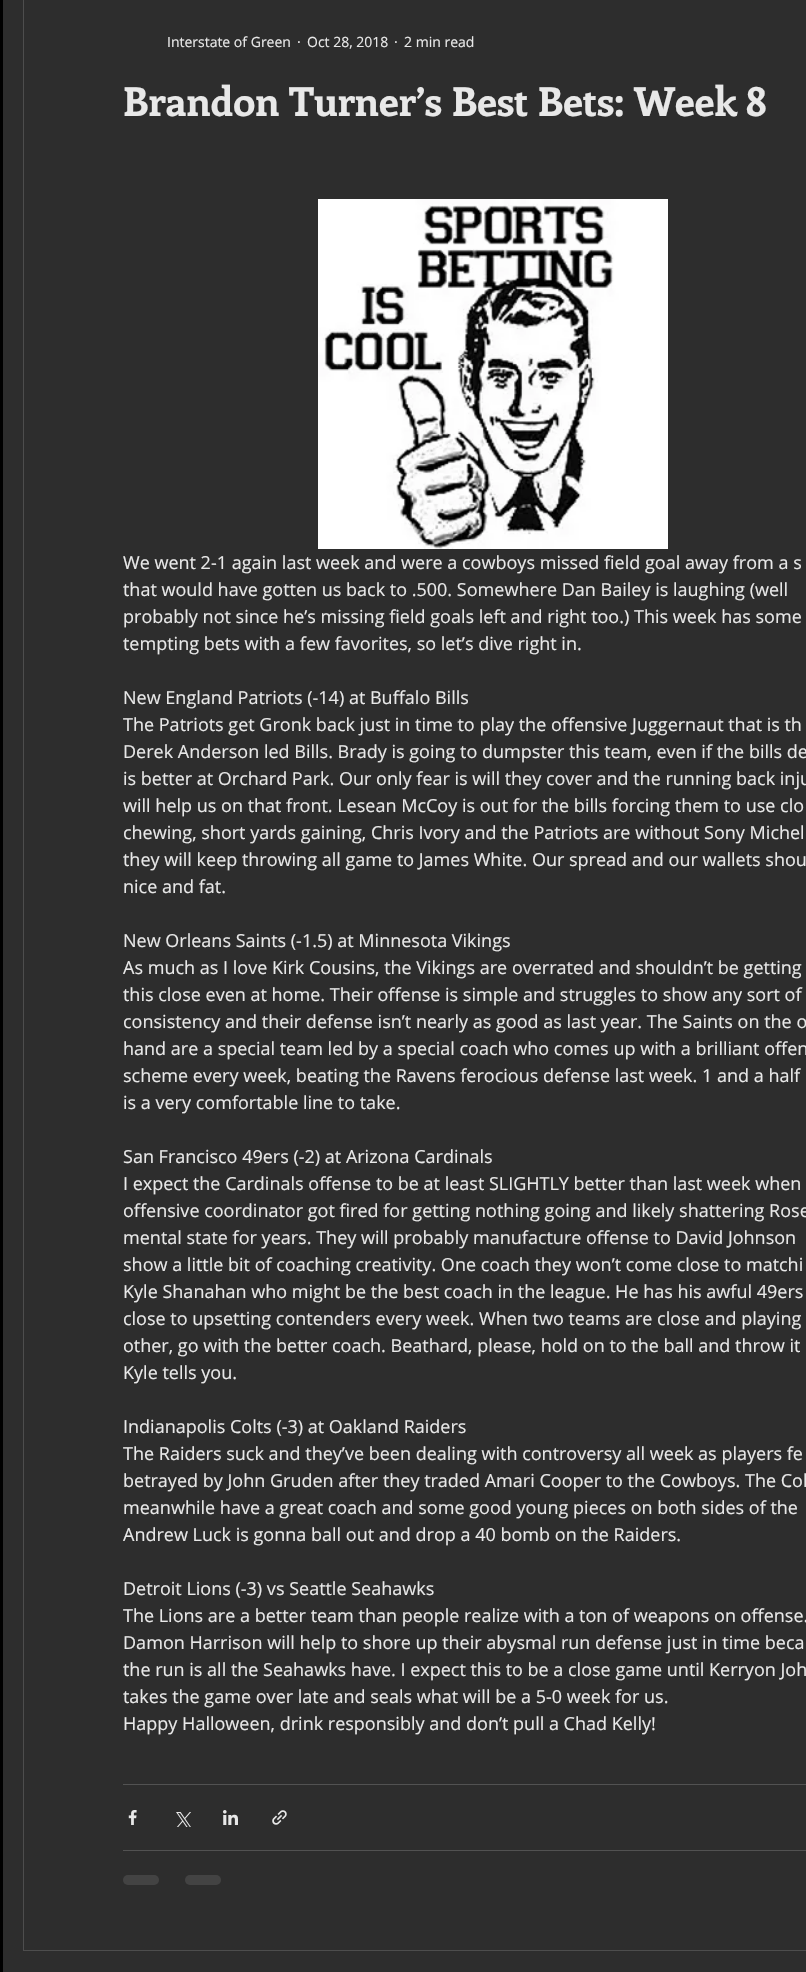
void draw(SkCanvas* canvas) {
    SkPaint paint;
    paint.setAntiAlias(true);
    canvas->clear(0xFF000000);
    paint.setColor(0xFF2D2D2D);
    canvas->drawRect(SkRect::MakeXYWH(3, 0, 803, 1972), paint);
    paint.setStyle(SkPaint::kStroke_Style);
    paint.setStrokeWidth(1);
    paint.setColor(0xFF4D4D4D);
    canvas->drawRect(SkRect::MakeXYWH(23.5f, -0.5f, 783, 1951), paint);
    SkFont font1(fontMgr->matchFamilyStyle("Open Sans", SkFontStyle::Normal()), 14);
    font1.setSubpixel(true);
    paint.setStyle(SkPaint::kFill_Style);
    paint.setColor(0xFFE8E8E8);
    canvas->drawString("Interstate of Green", 167, 47, font1, paint);
    canvas->drawString("·", 297, 47, font1, paint);
    canvas->drawString("Oct 28, 2018", 307, 47, font1, paint);
    canvas->drawString("·", 394, 47, font1, paint);
    canvas->drawString("2 min read", 404, 47, font1, paint);
    SkFont font2(fontMgr->matchFamilyStyle("Enriqueta", SkFontStyle::Bold()), 40);
    font2.setSubpixel(true);
    canvas->drawString("Brandon Turner’s Best Bets: Week 8", 123, 116, font2, paint);
    canvas->drawImageRect(SkImages::DeferredFromEncodedData(SkData::MakeFromFileName("img1.png")), SkRect::MakeXYWH(318, 199, 350, 350), SkSamplingOptions());
    SkFont font3(fontMgr->matchFamilyStyle("Open Sans", SkFontStyle::Normal()), 18);
    font3.setSubpixel(true);
    canvas->drawString("We went 2-1 again last week and were a cowboys missed field goal away from a s", 123, 569, font3, paint);
    canvas->drawString("that would have gotten us back to .500. Somewhere Dan Bailey is laughing (well", 123, 596, font3, paint);
    canvas->drawString("probably not since he’s missing field goals left and right too.) This week has some", 123, 623, font3, paint);
    canvas->drawString("tempting bets with a few favorites, so let’s dive right in.", 123, 650, font3, paint);
    canvas->drawString("New England Patriots (-14) at Buffalo Bills", 123, 704, font3, paint);
    canvas->drawString("The Patriots get Gronk back just in time to play the offensive Juggernaut that is th", 123, 731, font3, paint);
    canvas->drawString("Derek Anderson led Bills. Brady is going to dumpster this team, even if the bills de", 123, 758, font3, paint);
    canvas->drawString("is better at Orchard Park. Our only fear is will they cover and the running back inju", 123, 785, font3, paint);
    canvas->drawString("will help us on that front. Lesean McCoy is out for the bills forcing them to use clo", 123, 812, font3, paint);
    canvas->drawString("chewing, short yards gaining, Chris Ivory and the Patriots are without Sony Michel", 123, 839, font3, paint);
    canvas->drawString("they will keep throwing all game to James White. Our spread and our wallets shou", 123, 866, font3, paint);
    canvas->drawString("nice and fat.", 123, 893, font3, paint);
    canvas->drawString("New Orleans Saints (-1.5) at Minnesota Vikings", 123, 947, font3, paint);
    canvas->drawString("As much as I love Kirk Cousins, the Vikings are overrated and shouldn’t be getting", 123, 974, font3, paint);
    canvas->drawString("this close even at home. Their offense is simple and struggles to show any sort of", 123, 1001, font3, paint);
    canvas->drawString("consistency and their defense isn’t nearly as good as last year. The Saints on the o", 123, 1028, font3, paint);
    canvas->drawString("hand are a special team led by a special coach who comes up with a brilliant offen", 123, 1055, font3, paint);
    canvas->drawString("scheme every week, beating the Ravens ferocious defense last week. 1 and a half", 123, 1082, font3, paint);
    canvas->drawString("is a very comfortable line to take.", 123, 1109, font3, paint);
    canvas->drawString("San Francisco 49ers (-2) at Arizona Cardinals", 123, 1163, font3, paint);
    canvas->drawString("I expect the Cardinals offense to be at least SLIGHTLY better than last week when", 123, 1190, font3, paint);
    canvas->drawString("offensive coordinator got fired for getting nothing going and likely shattering Rose", 123, 1217, font3, paint);
    canvas->drawString("mental state for years. They will probably manufacture offense to David Johnson", 123, 1244, font3, paint);
    canvas->drawString("show a little bit of coaching creativity. One coach they won’t come close to matchi", 123, 1271, font3, paint);
    canvas->drawString("Kyle Shanahan who might be the best coach in the league. He has his awful 49ers", 123, 1298, font3, paint);
    canvas->drawString("close to upsetting contenders every week. When two teams are close and playing", 123, 1325, font3, paint);
    canvas->drawString("other, go with the better coach. Beathard, please, hold on to the ball and throw it", 123, 1352, font3, paint);
    canvas->drawString("Kyle tells you.", 123, 1379, font3, paint);
    canvas->drawString("Indianapolis Colts (-3) at Oakland Raiders", 123, 1433, font3, paint);
    canvas->drawString("The Raiders suck and they’ve been dealing with controversy all week as players fe", 123, 1460, font3, paint);
    canvas->drawString("betrayed by John Gruden after they traded Amari Cooper to the Cowboys. The Col", 123, 1487, font3, paint);
    canvas->drawString("meanwhile have a great coach and some good young pieces on both sides of the", 123, 1514, font3, paint);
    canvas->drawString("Andrew Luck is gonna ball out and drop a 40 bomb on the Raiders.", 123, 1541, font3, paint);
    canvas->drawString("Detroit Lions (-3) vs Seattle Seahawks", 123, 1595, font3, paint);
    canvas->drawString("The Lions are a better team than people realize with a ton of weapons on offense.", 123, 1622, font3, paint);
    canvas->drawString("Damon Harrison will help to shore up their abysmal run defense just in time beca", 123, 1649, font3, paint);
    canvas->drawString("the run is all the Seahawks have. I expect this to be a close game until Kerryon Joh", 123, 1676, font3, paint);
    canvas->drawString("takes the game over late and seals what will be a 5-0 week for us.", 123, 1703, font3, paint);
    canvas->drawString("Happy Halloween, drink responsibly and don’t pull a Chad Kelly!", 123, 1730, font3, paint);
    paint.setColor(0xFF525252);
    canvas->drawRect(SkRect::MakeXYWH(123, 1784, 683, 1), paint);
    canvas->drawImageRect(SkImages::DeferredFromEncodedData(SkData::MakeFromFileName("img2.png")), SkRect::MakeXYWH(128, 1810, 9, 15), SkSamplingOptions());
    canvas->drawImageRect(SkImages::DeferredFromEncodedData(SkData::MakeFromFileName("img3.png")), SkRect::MakeXYWH(176, 1812, 15, 15), SkSamplingOptions());
    canvas->drawImageRect(SkImages::DeferredFromEncodedData(SkData::MakeFromFileName("img4.png")), SkRect::MakeXYWH(223, 1810, 15, 15), SkSamplingOptions());
    canvas->drawImageRect(SkImages::DeferredFromEncodedData(SkData::MakeFromFileName("img5.png")), SkRect::MakeXYWH(272, 1810, 15, 15), SkSamplingOptions());
    canvas->drawRect(SkRect::MakeXYWH(123, 1850, 683, 1), paint);
    paint.setColor(0xFF434343);
    canvas->drawRoundRect(SkRect::MakeXYWH(123, 1875, 36, 10), 5, 5, paint);
    canvas->drawRoundRect(SkRect::MakeXYWH(185, 1875, 36, 10), 5, 5, paint);
}
